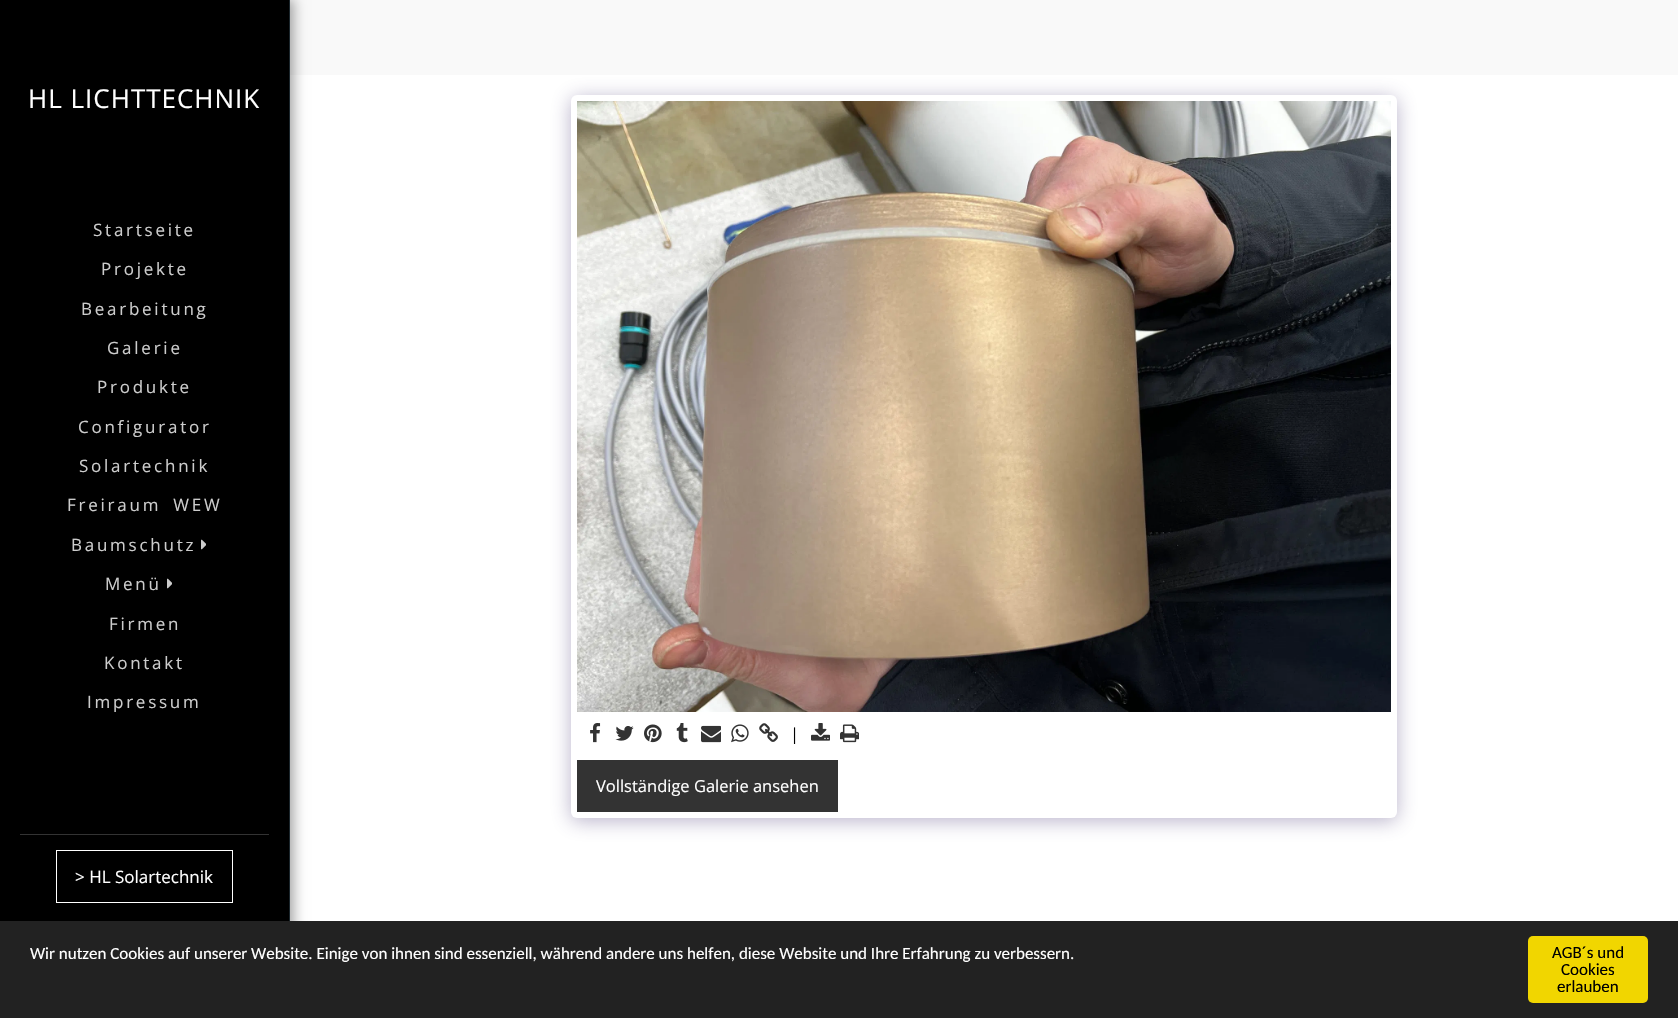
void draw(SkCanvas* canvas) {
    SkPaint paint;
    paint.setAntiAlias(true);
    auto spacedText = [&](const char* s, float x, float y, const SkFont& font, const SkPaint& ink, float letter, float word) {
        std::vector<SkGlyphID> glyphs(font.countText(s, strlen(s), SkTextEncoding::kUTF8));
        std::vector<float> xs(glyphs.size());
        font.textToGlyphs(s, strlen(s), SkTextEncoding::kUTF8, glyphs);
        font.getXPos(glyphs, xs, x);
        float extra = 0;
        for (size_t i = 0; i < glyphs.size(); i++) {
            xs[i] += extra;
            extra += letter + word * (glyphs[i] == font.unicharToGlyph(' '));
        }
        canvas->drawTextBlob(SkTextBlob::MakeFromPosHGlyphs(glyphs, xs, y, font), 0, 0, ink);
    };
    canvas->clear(0xFFFFFFFF);
    paint.setColor(0xFFF9F9F9);
    canvas->drawRect(SkRect::MakeXYWH(290, 0, 1388, 75), paint);
    paint.setColor(0x59000000);
    paint.setMaskFilter(SkMaskFilter::MakeBlur(kNormal_SkBlurStyle, 6));
    canvas->drawRect(SkRect::MakeXYWH(0, -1, 294, 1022), paint);
    paint.setMaskFilter(nullptr);
    paint.setColor(0xFF000000);
    canvas->drawRect(SkRect::MakeXYWH(0, 0, 289, 921), paint);
    paint.setColor(0xFF1B262C);
    canvas->drawRect(SkRect::MakeXYWH(289, 0, 1, 921), paint);
    SkFont font1(fontMgr->matchFamilyStyle("Open Sans", SkFontStyle::Normal()), 26);
    font1.setSubpixel(true);
    paint.setColor(0xFFFFFFFF);
    spacedText("HL LICHTTECHNIK", 28, 108, font1, paint, 1, 0);
    SkFont font2(fontMgr->matchFamilyStyle("Open Sans", SkFontStyle::Normal()), 17);
    font2.setSubpixel(true);
    paint.setColor(0xFFCCCCCC);
    spacedText("Startseite", 93, 236, font2, paint, 2.75f, 0);
    spacedText("Projekte", 101, 275, font2, paint, 2.75f, 0);
    spacedText("Bearbeitung", 81, 315, font2, paint, 2.75f, 0);
    spacedText("Galerie", 107, 354, font2, paint, 2.75f, 0);
    spacedText("Produkte", 97, 393, font2, paint, 2.75f, 0);
    spacedText("Configurator", 78, 433, font2, paint, 2.75f, 0);
    spacedText("Solartechnik", 79, 472, font2, paint, 2.75f, 0);
    spacedText("Freiraum WEW", 67, 511, font2, paint, 2.75f, 5);
    spacedText("Baumschutz", 71, 551, font2, paint, 2.75f, 0);
    canvas->drawImageRect(SkImages::DeferredFromEncodedData(SkData::MakeFromFileName("img1.png")), SkRect::MakeXYWH(201, 539, 5, 11), SkSamplingOptions());
    spacedText("Menü", 105, 590, font2, paint, 2.75f, 0);
    canvas->drawImageRect(SkImages::DeferredFromEncodedData(SkData::MakeFromFileName("img1.png")), SkRect::MakeXYWH(167, 578, 5, 11), SkSamplingOptions());
    spacedText("Firmen", 109, 630, font2, paint, 2.75f, 0);
    spacedText("Kontakt", 104, 669, font2, paint, 2.75f, 0);
    spacedText("Impressum", 87, 708, font2, paint, 2.75f, 0);
    paint.setColor(0xFF333333);
    canvas->drawRect(SkRect::MakeXYWH(20, 834, 249, 1), paint);
    paint.setStyle(SkPaint::kStroke_Style);
    paint.setStrokeWidth(1);
    paint.setColor(0xFFFFFFFF);
    canvas->drawRect(SkRect::MakeXYWH(56.5f, 850.5f, 176, 52), paint);
    paint.setStyle(SkPaint::kFill_Style);
    canvas->drawString("> HL Solartechnik", 75, 883, font2, paint);
    paint.setColor(0x664D3F7A);
    paint.setMaskFilter(SkMaskFilter::MakeBlur(kNormal_SkBlurStyle, 10));
    canvas->drawRoundRect(SkRect::MakeXYWH(571, 98, 826, 723), 6, 6, paint);
    paint.setMaskFilter(nullptr);
    paint.setColor(0xFFFFFFFF);
    canvas->drawRoundRect(SkRect::MakeXYWH(571, 95, 826, 723), 6, 6, paint);
    canvas->drawImageRect(SkImages::DeferredFromEncodedData(SkData::MakeFromFileName("img2.png")), SkRect::MakeXYWH(577, 101, 814, 611), SkSamplingOptions());
    canvas->drawImageRect(SkImages::DeferredFromEncodedData(SkData::MakeFromFileName("img3.png")), SkRect::MakeXYWH(590, 723, 11, 20), SkSamplingOptions());
    canvas->drawImageRect(SkImages::DeferredFromEncodedData(SkData::MakeFromFileName("img4.png")), SkRect::MakeXYWH(615, 726, 19, 15), SkSamplingOptions());
    canvas->drawImageRect(SkImages::DeferredFromEncodedData(SkData::MakeFromFileName("img5.png")), SkRect::MakeXYWH(644, 724, 18, 19), SkSamplingOptions());
    canvas->drawImageRect(SkImages::DeferredFromEncodedData(SkData::MakeFromFileName("img6.png")), SkRect::MakeXYWH(676, 723, 12, 20), SkSamplingOptions());
    canvas->drawImageRect(SkImages::DeferredFromEncodedData(SkData::MakeFromFileName("img7.png")), SkRect::MakeXYWH(701, 725, 20, 18), SkSamplingOptions());
    canvas->drawImageRect(SkImages::DeferredFromEncodedData(SkData::MakeFromFileName("img8.png")), SkRect::MakeXYWH(731, 724, 18, 19), SkSamplingOptions());
    canvas->drawImageRect(SkImages::DeferredFromEncodedData(SkData::MakeFromFileName("img9.png")), SkRect::MakeXYWH(759, 723, 19, 19), SkSamplingOptions());
    SkFont font3(fontMgr->matchFamilyStyle("Open Sans", SkFontStyle::Normal()), 16.5f);
    font3.setSubpixel(true);
    paint.setColor(0xFF000000);
    canvas->drawString("|", 790, 740, font3, paint);
    canvas->drawImageRect(SkImages::DeferredFromEncodedData(SkData::MakeFromFileName("img10.png")), SkRect::MakeXYWH(811, 723, 19, 18), SkSamplingOptions());
    canvas->drawImageRect(SkImages::DeferredFromEncodedData(SkData::MakeFromFileName("img11.png")), SkRect::MakeXYWH(840, 724, 19, 19), SkSamplingOptions());
    paint.setColor(0xFF333333);
    canvas->drawRect(SkRect::MakeXYWH(577, 760, 261, 52), paint);
    paint.setColor(0xFFFFFFFF);
    canvas->drawString("Vollständige Galerie ansehen", 596, 792, font3, paint);
    paint.setColor(0xFF222222);
    canvas->drawRect(SkRect::MakeXYWH(0, 921, 1678, 97), paint);
    SkFont font4(fontMgr->matchFamilyStyle("Carlito", SkFontStyle::Normal()), 17);
    font4.setSubpixel(true);
    paint.setColor(0xFFFFFFFF);
    canvas->drawString("Wir nutzen Cookies auf unserer Website. Einige von ihnen sind essenziell, während andere uns helfen, diese Website und Ihre Erfahrung zu verbessern.", 30, 959, font4, paint);
    paint.setColor(0xFFF1D600);
    canvas->drawRoundRect(SkRect::MakeXYWH(1528, 936, 120, 67), 5, 5, paint);
    paint.setColor(0xFF000000);
    canvas->drawString("AGB´s und", 1552, 958, font4, paint);
    canvas->drawString("Cookies", 1561, 975, font4, paint);
    canvas->drawString("erlauben", 1557, 992, font4, paint);
}
